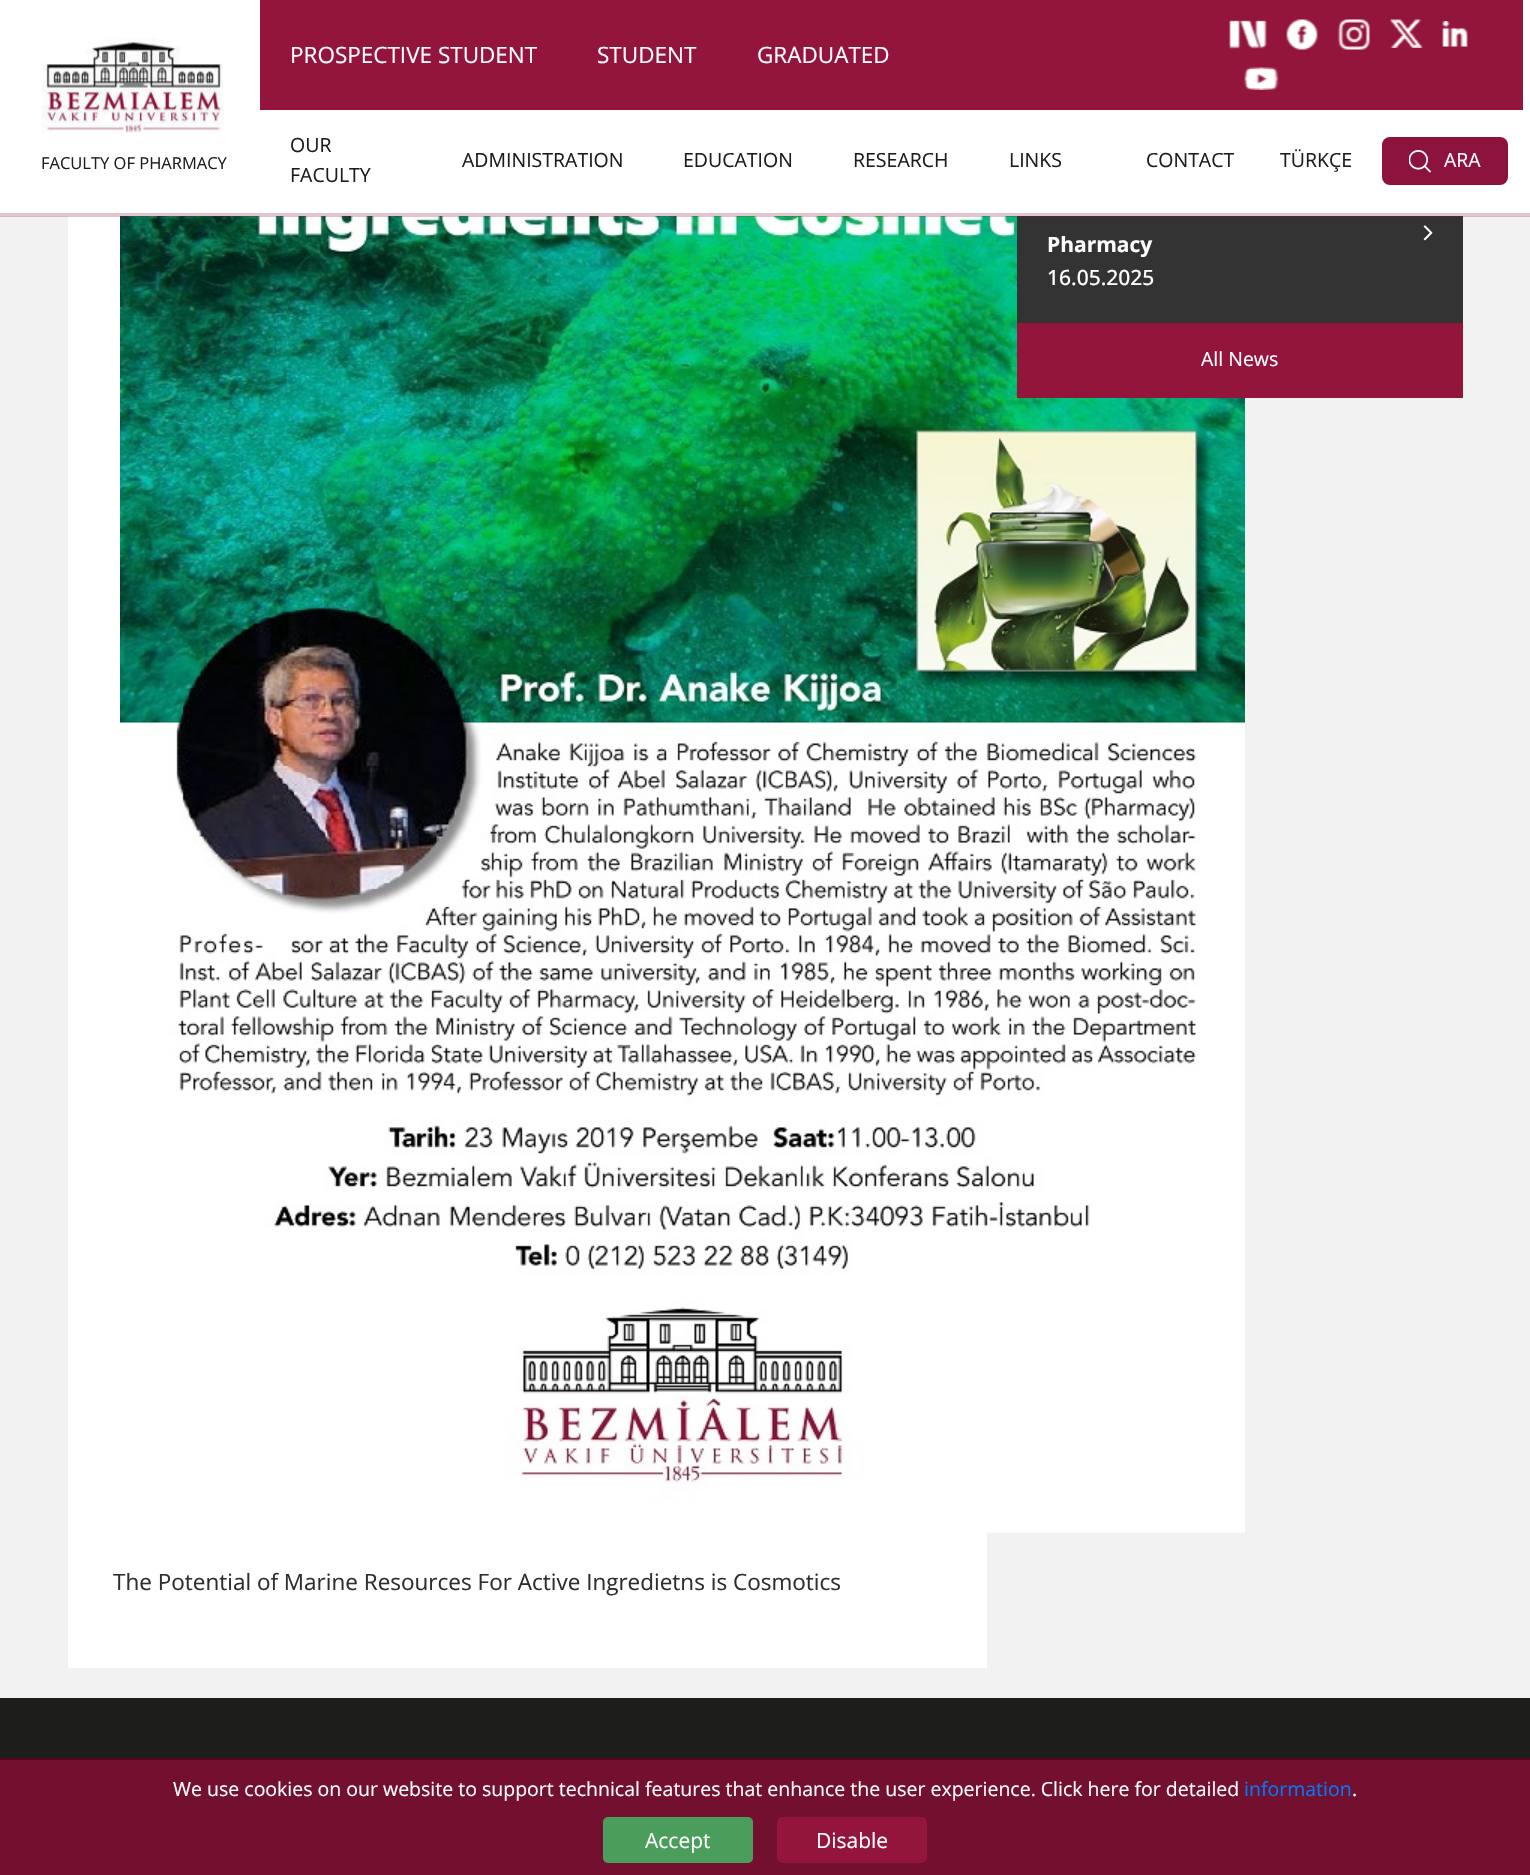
void draw(SkCanvas* canvas) {
    SkPaint paint;
    paint.setAntiAlias(true);
    canvas->clear(0xFFF2F2F2);
    paint.setColor(0xFFFFFFFF);
    canvas->drawRect(SkRect::MakeXYWH(0, 0, 1530, 216), paint);
    canvas->drawRect(SkRect::MakeXYWH(68, 216, 919, 1452), paint);
    canvas->drawImageRect(SkImages::DeferredFromEncodedData(SkData::MakeFromFileName("img10.png")), SkRect::MakeXYWH(120, 216, 1125, 1317), SkSamplingOptions());
    paint.setColor(0xFF333333);
    canvas->drawRect(SkRect::MakeXYWH(1017, 216, 446, 107), paint);
    paint.setColor(0x408D133F);
    canvas->drawRect(SkRect::MakeXYWH(0, 215, 1530, 2), paint);
    paint.setColor(0xFFE3C4CF);
    canvas->drawRect(SkRect::MakeXYWH(0, 213, 1530, 2), paint);
    canvas->drawImageRect(SkImages::DeferredFromEncodedData(SkData::MakeFromFileName("img1.png")), SkRect::MakeXYWH(42, 38, 181, 95), SkSamplingOptions());
    SkFont font1(fontMgr->matchFamilyStyle("Open Sans", SkFontStyle::Normal()), 16.5f);
    font1.setSubpixel(true);
    paint.setColor(0xFF1D1D1B);
    canvas->drawString("FACULTY OF PHARMACY", 41, 169, font1, paint);
    paint.setColor(0xFF93153C);
    canvas->drawRect(SkRect::MakeXYWH(260, 0, 1263, 110), paint);
    SkFont font2(fontMgr->matchFamilyStyle("Open Sans", SkFontStyle::Normal()), 22.5f);
    font2.setSubpixel(true);
    paint.setColor(0xFFFFFFFF);
    canvas->drawString("PROSPECTIVE STUDENT", 290, 63, font2, paint);
    canvas->drawString("STUDENT", 597, 63, font2, paint);
    canvas->drawString("GRADUATED", 757, 63, font2, paint);
    canvas->drawImageRect(SkImages::DeferredFromEncodedData(SkData::MakeFromFileName("img2.png")), SkRect::MakeXYWH(1229, 20, 38, 29), SkSamplingOptions());
    canvas->drawImageRect(SkImages::DeferredFromEncodedData(SkData::MakeFromFileName("img3.png")), SkRect::MakeXYWH(1286, 19, 32, 31), SkSamplingOptions());
    canvas->drawImageRect(SkImages::DeferredFromEncodedData(SkData::MakeFromFileName("img4.png")), SkRect::MakeXYWH(1337, 19, 33, 31), SkSamplingOptions());
    canvas->drawImageRect(SkImages::DeferredFromEncodedData(SkData::MakeFromFileName("img5.png")), SkRect::MakeXYWH(1390, 19, 33, 29), SkSamplingOptions());
    canvas->drawImageRect(SkImages::DeferredFromEncodedData(SkData::MakeFromFileName("img6.png")), SkRect::MakeXYWH(1442, 21, 26, 26), SkSamplingOptions());
    canvas->drawImageRect(SkImages::DeferredFromEncodedData(SkData::MakeFromFileName("img7.png")), SkRect::MakeXYWH(1244, 67, 35, 23), SkSamplingOptions());
    SkFont font3(fontMgr->matchFamilyStyle("Open Sans", SkFontStyle::Normal()), 19.5f);
    font3.setSubpixel(true);
    paint.setColor(0xFF1D1D1B);
    canvas->drawString("OUR", 290, 152, font3, paint);
    canvas->drawString("FACULTY", 290, 182, font3, paint);
    canvas->drawString("ADMINISTRATION", 462, 167, font3, paint);
    canvas->drawString("EDUCATION", 683, 167, font3, paint);
    canvas->drawString("RESEARCH", 853, 167, font3, paint);
    canvas->drawString("LINKS", 1009, 167, font3, paint);
    canvas->drawString("CONTACT", 1146, 167, font3, paint);
    canvas->drawString("TÜRKÇE", 1280, 167, font3, paint);
    paint.setColor(0xFF8D133F);
    canvas->drawRoundRect(SkRect::MakeXYWH(1382, 137, 126, 48), 8, 8, paint);
    canvas->drawImageRect(SkImages::DeferredFromEncodedData(SkData::MakeFromFileName("img8.png")), SkRect::MakeXYWH(1409, 150, 22, 23), SkSamplingOptions());
    paint.setColor(0xFFFFFFFF);
    canvas->drawString("ARA", 1444, 167, font3, paint);
    canvas->drawImageRect(SkImages::DeferredFromEncodedData(SkData::MakeFromFileName("img9.png")), SkRect::MakeXYWH(1423, 225, 10, 16), SkSamplingOptions());
    SkFont font4(fontMgr->matchFamilyStyle("Open Sans", SkFontStyle::Bold()), 21);
    font4.setSubpixel(true);
    canvas->drawString("Pharmacy", 1047, 252, font4, paint);
    SkFont font5(fontMgr->matchFamilyStyle("Open Sans", SkFontStyle(500, SkFontStyle::kNormal_Width, SkFontStyle::kUpright_Slant)), 21);
    font5.setSubpixel(true);
    canvas->drawString("16.05.2025", 1047, 285, font5, paint);
    paint.setColor(0xFF93153C);
    canvas->drawRect(SkRect::MakeXYWH(1017, 323, 446, 75), paint);
    paint.setColor(0xFFFFFFFF);
    canvas->drawString("All News", 1201, 366, font3, paint);
    paint.setColor(0xFF2D2E31);
    canvas->drawString("The Potential of Marine Resources For Active Ingredietns is Cosmotics", 113, 1590, font2, paint);
    paint.setColor(0xFF1D1D1B);
    canvas->drawRect(SkRect::MakeXYWH(0, 1698, 1530, 60), paint);
    paint.setColor(0xFF74102F);
    canvas->drawRect(SkRect::MakeXYWH(0, 1760, 1530, 115), paint);
    paint.setColor(0xFF520920);
    canvas->drawRect(SkRect::MakeXYWH(0, 1758, 1530, 2), paint);
    paint.setColor(0xFFFFFFFF);
    canvas->drawString("We use cookies on our website to support technical features that enhance the user experience. Click here for detailed", 173, 1796, font3, paint);
    paint.setColor(0xFF007BFF);
    canvas->drawString("information", 1244, 1796, font3, paint);
    paint.setColor(0xFFFFFFFF);
    canvas->drawString(".", 1352, 1796, font3, paint);
    paint.setColor(0xFF4A9D5A);
    canvas->drawRoundRect(SkRect::MakeXYWH(603, 1817, 150, 46), 5, 5, paint);
    SkFont font6(fontMgr->matchFamilyStyle("Open Sans", SkFontStyle::Normal()), 21);
    font6.setSubpixel(true);
    paint.setColor(0xFFFFFFFF);
    canvas->drawString("Accept", 645, 1848, font6, paint);
    paint.setColor(0xFF93153C);
    canvas->drawRoundRect(SkRect::MakeXYWH(777, 1817, 150, 46), 5, 5, paint);
    paint.setColor(0xFFFFFFFF);
    canvas->drawString("Disable", 816, 1848, font6, paint);
}
